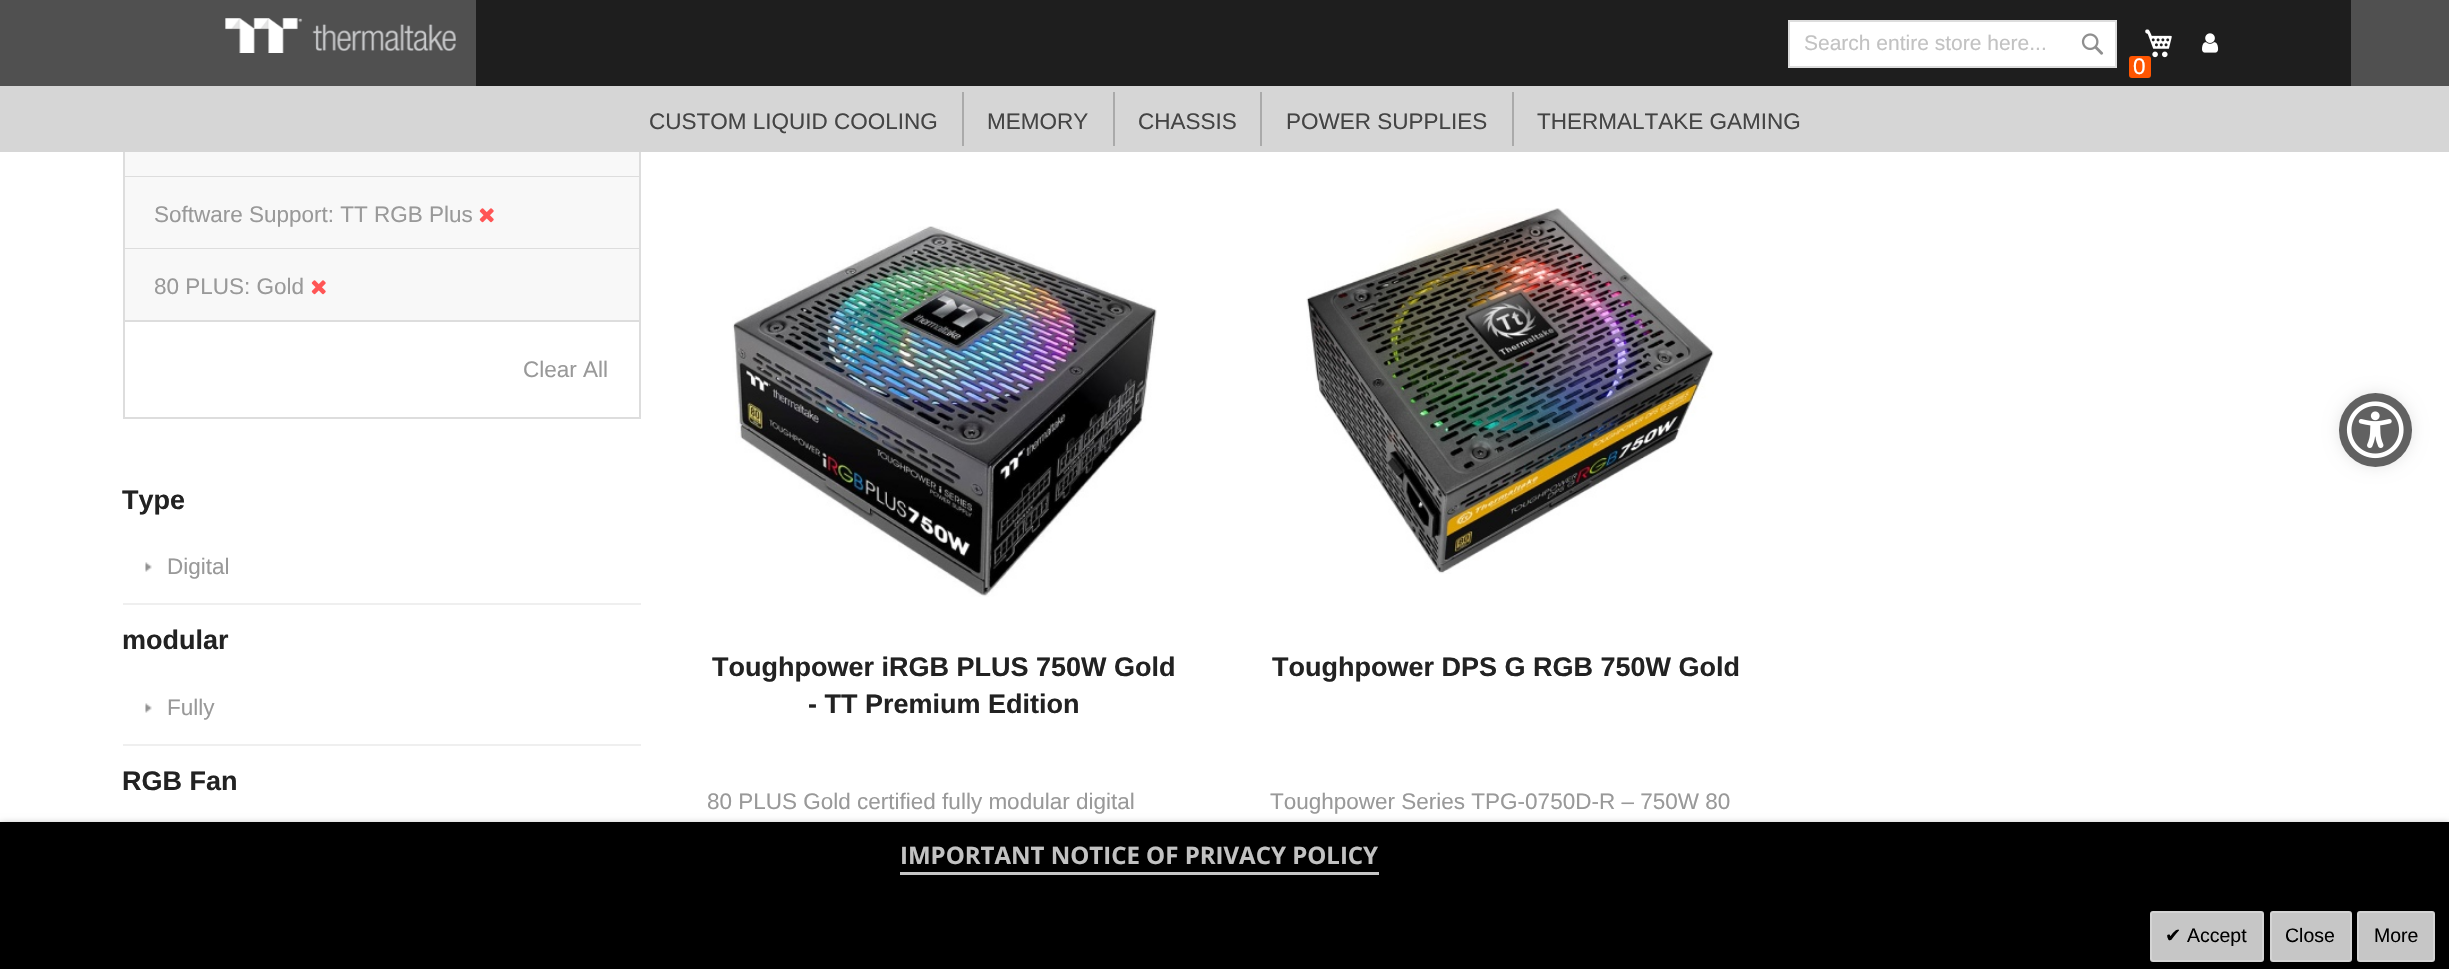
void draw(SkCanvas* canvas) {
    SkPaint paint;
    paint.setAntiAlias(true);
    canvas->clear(0xFFFFFFFF);
    paint.setColor(0xFF505050);
    canvas->drawRect(SkRect::MakeXYWH(0, 0, 2449, 86), paint);
    canvas->drawImageRect(SkImages::DeferredFromEncodedData(SkData::MakeFromFileName("img1.png")), SkRect::MakeXYWH(225, 18, 231, 35), SkSamplingOptions());
    paint.setColor(0xFF1E1E1E);
    canvas->drawRect(SkRect::MakeXYWH(476, 0, 1875, 86), paint);
    paint.setColor(0xFFFFFFFF);
    canvas->drawRect(SkRect::MakeXYWH(1789, 21, 327, 46), paint);
    paint.setStyle(SkPaint::kStroke_Style);
    paint.setStrokeWidth(2);
    paint.setColor(0xFFDDDDDD);
    canvas->drawRect(SkRect::MakeXYWH(1789, 21, 327, 46), paint);
    SkFont font1(fontMgr->matchFamilyStyle("Liberation Sans", SkFontStyle::Normal()), 21);
    font1.setSubpixel(true);
    paint.setStyle(SkPaint::kFill_Style);
    paint.setColor(0xFFC2C2C2);
    canvas->drawString("Search entire store here...", 1804, 50, font1, paint);
    canvas->drawImageRect(SkImages::DeferredFromEncodedData(SkData::MakeFromFileName("img2.png")), SkRect::MakeXYWH(2081, 33, 23, 22), SkSamplingOptions());
    canvas->drawImageRect(SkImages::DeferredFromEncodedData(SkData::MakeFromFileName("img3.png")), SkRect::MakeXYWH(2202, 33, 17, 20), SkSamplingOptions());
    canvas->drawImageRect(SkImages::DeferredFromEncodedData(SkData::MakeFromFileName("img4.png")), SkRect::MakeXYWH(2145, 29, 27, 29), SkSamplingOptions());
    paint.setColor(0xFFFF5501);
    canvas->drawRoundRect(SkRect::MakeXYWH(2129, 56, 22, 22), 3, 3, paint);
    SkFont font2(fontMgr->matchFamilyStyle("Liberation Sans", SkFontStyle::Normal()), 22.5f);
    font2.setSubpixel(true);
    paint.setColor(0xFFFFFFFF);
    canvas->drawString("0", 2133, 74, font2, paint);
    paint.setColor(0xFFD6D6D6);
    canvas->drawRect(SkRect::MakeXYWH(0, 86, 2449, 66), paint);
    paint.setColor(0xFF444444);
    canvas->drawString("CUSTOM LIQUID COOLING", 649, 129, font2, paint);
    paint.setColor(0xFFAAAAAA);
    canvas->drawRect(SkRect::MakeXYWH(962, 92, 2, 54), paint);
    paint.setColor(0xFF444444);
    canvas->drawString("MEMORY", 987, 129, font2, paint);
    paint.setColor(0xFFAAAAAA);
    canvas->drawRect(SkRect::MakeXYWH(1113, 92, 2, 54), paint);
    paint.setColor(0xFF444444);
    canvas->drawString("CHASSIS", 1138, 129, font2, paint);
    paint.setColor(0xFFAAAAAA);
    canvas->drawRect(SkRect::MakeXYWH(1260, 92, 2, 54), paint);
    paint.setColor(0xFF444444);
    canvas->drawString("POWER SUPPLIES", 1286, 129, font2, paint);
    paint.setColor(0xFFAAAAAA);
    canvas->drawRect(SkRect::MakeXYWH(1512, 92, 2, 54), paint);
    paint.setColor(0xFF444444);
    canvas->drawString("THERMALTAKE GAMING", 1537, 129, font2, paint);
    paint.setColor(0xFFDDDDDD);
    canvas->drawRect(SkRect::MakeXYWH(639, 152, 2, 168), paint);
    canvas->drawRect(SkRect::MakeXYWH(123, 152, 2, 168), paint);
    paint.setColor(0xFFF8F8F8);
    canvas->drawRect(SkRect::MakeXYWH(125, 152, 514, 24), paint);
    paint.setColor(0xFFDDDDDD);
    canvas->drawRect(SkRect::MakeXYWH(125, 176, 514, 1), paint);
    paint.setColor(0xFFF8F8F8);
    canvas->drawRect(SkRect::MakeXYWH(125, 177, 514, 71), paint);
    paint.setColor(0xFFDDDDDD);
    canvas->drawRect(SkRect::MakeXYWH(125, 248, 514, 1), paint);
    paint.setColor(0xFF999999);
    canvas->drawString("Software Support: TT RGB Plus", 154, 222, font2, paint);
    canvas->drawImageRect(SkImages::DeferredFromEncodedData(SkData::MakeFromFileName("img5.png")), SkRect::MakeXYWH(479, 208, 15, 15), SkSamplingOptions());
    paint.setColor(0xFFF8F8F8);
    canvas->drawRect(SkRect::MakeXYWH(125, 249, 514, 71), paint);
    paint.setColor(0xFF999999);
    canvas->drawString("80 PLUS: Gold", 154, 294, font2, paint);
    canvas->drawImageRect(SkImages::DeferredFromEncodedData(SkData::MakeFromFileName("img5.png")), SkRect::MakeXYWH(311, 280, 15, 15), SkSamplingOptions());
    paint.setStyle(SkPaint::kStroke_Style);
    paint.setColor(0xFFDDDDDD);
    canvas->drawRect(SkRect::MakeXYWH(124, 321, 516, 97), paint);
    paint.setStyle(SkPaint::kFill_Style);
    paint.setColor(0xFF999999);
    canvas->drawString("Clear All", 523, 377, font2, paint);
    SkFont font3(fontMgr->matchFamilyStyle("Liberation Sans", SkFontStyle::Bold()), 27);
    font3.setSubpixel(true);
    paint.setColor(0xFF222222);
    canvas->drawString("Type", 122, 509, font3, paint);
    paint.setColor(0xFFEFEFEF);
    canvas->drawRect(SkRect::MakeXYWH(123, 603, 518, 2), paint);
    canvas->drawImageRect(SkImages::DeferredFromEncodedData(SkData::MakeFromFileName("img6.png")), SkRect::MakeXYWH(145, 562, 7, 10), SkSamplingOptions());
    paint.setColor(0xFF999999);
    canvas->drawString("Digital", 167, 574, font2, paint);
    paint.setColor(0xFF222222);
    canvas->drawString("modular", 122, 649, font3, paint);
    paint.setColor(0xFFEFEFEF);
    canvas->drawRect(SkRect::MakeXYWH(123, 744, 518, 2), paint);
    canvas->drawImageRect(SkImages::DeferredFromEncodedData(SkData::MakeFromFileName("img6.png")), SkRect::MakeXYWH(145, 703, 7, 10), SkSamplingOptions());
    paint.setColor(0xFF999999);
    canvas->drawString("Fully", 167, 715, font2, paint);
    paint.setColor(0xFF222222);
    canvas->drawString("RGB Fan", 122, 790, font3, paint);
    canvas->drawImageRect(SkImages::DeferredFromEncodedData(SkData::MakeFromFileName("img7.png")), SkRect::MakeXYWH(732, 226, 425, 371), SkSamplingOptions());
    canvas->drawString("Toughpower iRGB PLUS 750W Gold", 712, 676, font3, paint);
    canvas->drawString("- TT Premium Edition", 808, 713, font3, paint);
    paint.setColor(0xFF999999);
    canvas->drawString("80 PLUS Gold certified fully modular digital", 707, 809, font2, paint);
    canvas->drawImageRect(SkImages::DeferredFromEncodedData(SkData::MakeFromFileName("img8.png")), SkRect::MakeXYWH(1306, 208, 408, 366), SkSamplingOptions());
    paint.setColor(0xFF222222);
    canvas->drawString("Toughpower DPS G RGB 750W Gold", 1272, 676, font3, paint);
    paint.setColor(0xFF999999);
    canvas->drawString("Toughpower Series TPG-0750D-R – 750W 80", 1270, 809, font2, paint);
    paint.setColor(0x78000000);
    paint.setMaskFilter(SkMaskFilter::MakeBlur(kNormal_SkBlurStyle, 4));
    canvas->drawRect(SkRect::MakeXYWH(0, 825, 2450, 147), paint);
    paint.setMaskFilter(nullptr);
    paint.setColor(0xFF000000);
    canvas->drawRect(SkRect::MakeXYWH(0, 822, 2449, 147), paint);
    SkFont font4(fontMgr->matchFamilyStyle("Open Sans", SkFontStyle::Bold()), 24);
    font4.setSubpixel(true);
    paint.setColor(0xFFC2C2C2);
    canvas->drawString("IMPORTANT NOTICE OF PRIVACY POLICY", 900, 864, font4, paint);
    paint.setColor(0xFFC6C6C6);
    canvas->drawRect(SkRect::MakeXYWH(900, 872, 479, 3), paint);
    canvas->drawRoundRect(SkRect::MakeXYWH(2151, 912, 112, 49), 2, 2, paint);
    paint.setStyle(SkPaint::kStroke_Style);
    paint.setColor(0xFFD4D4D4);
    canvas->drawRoundRect(SkRect::MakeXYWH(2151, 912, 112, 49), 2, 2, paint);
    SkFont font5(fontMgr->matchFamilyStyle("DejaVu Sans", SkFontStyle::Normal()), 19.5f);
    font5.setSubpixel(true);
    paint.setStyle(SkPaint::kFill_Style);
    paint.setColor(0xFF000000);
    canvas->drawString("✔", 2165, 942, font5, paint);
    SkFont font6(fontMgr->matchFamilyStyle("Liberation Sans", SkFontStyle::Normal()), 19.5f);
    font6.setSubpixel(true);
    canvas->drawString("Accept", 2187, 942, font6, paint);
    paint.setColor(0xFFC6C6C6);
    canvas->drawRoundRect(SkRect::MakeXYWH(2271, 912, 80, 49), 2, 2, paint);
    paint.setStyle(SkPaint::kStroke_Style);
    paint.setColor(0xFFD4D4D4);
    canvas->drawRoundRect(SkRect::MakeXYWH(2271, 912, 80, 49), 2, 2, paint);
    paint.setStyle(SkPaint::kFill_Style);
    paint.setColor(0xFF000000);
    canvas->drawString("Close", 2285, 942, font6, paint);
    paint.setColor(0xFFC6C6C6);
    canvas->drawRoundRect(SkRect::MakeXYWH(2358, 912, 76, 49), 2, 2, paint);
    paint.setStyle(SkPaint::kStroke_Style);
    paint.setColor(0xFFD4D4D4);
    canvas->drawRoundRect(SkRect::MakeXYWH(2358, 912, 76, 49), 2, 2, paint);
    paint.setStyle(SkPaint::kFill_Style);
    paint.setColor(0xFF000000);
    canvas->drawString("More", 2374, 942, font6, paint);
    paint.setColor(0x1A000000);
    paint.setMaskFilter(SkMaskFilter::MakeBlur(kNormal_SkBlurStyle, 7.5f));
    canvas->drawRoundRect(SkRect::MakeXYWH(2339, 393, 73, 74), 36.5f, 36.5f, paint);
    paint.setMaskFilter(nullptr);
    paint.setColor(0xFF616161);
    canvas->drawRoundRect(SkRect::MakeXYWH(2339, 393, 73, 74), 36.5f, 36.5f, paint);
    canvas->drawImageRect(SkImages::DeferredFromEncodedData(SkData::MakeFromFileName("img9.png")), SkRect::MakeXYWH(2346, 401, 58, 58), SkSamplingOptions());
}
